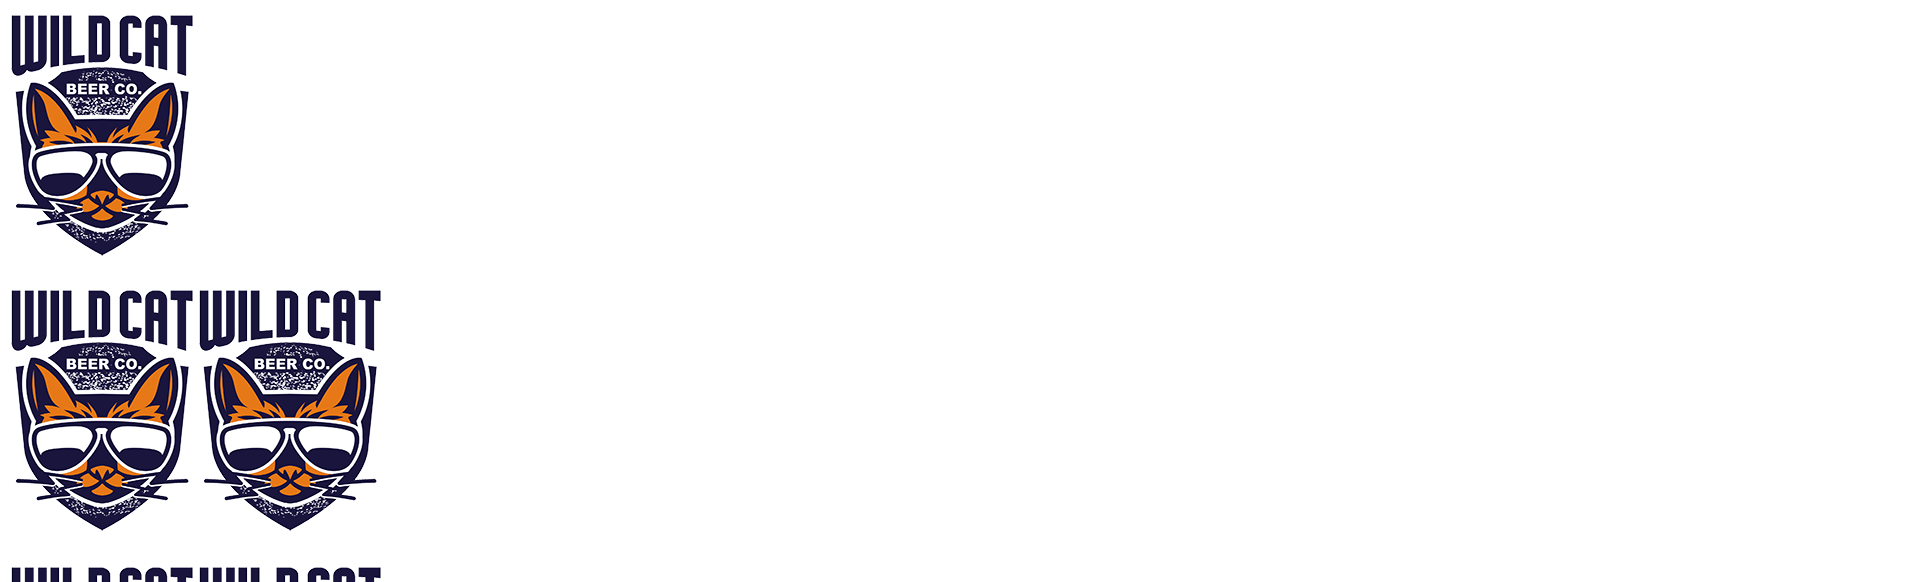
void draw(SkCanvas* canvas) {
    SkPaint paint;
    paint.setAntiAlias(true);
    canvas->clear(0xFFFFFFFF);
    canvas->drawImageRect(SkImages::DeferredFromEncodedData(SkData::MakeFromFileName("img1.png")), SkRect::MakeXYWH(11, 15, 182, 241), SkSamplingOptions());
    canvas->drawImageRect(SkImages::DeferredFromEncodedData(SkData::MakeFromFileName("img1.png")), SkRect::MakeXYWH(11, 290, 182, 241), SkSamplingOptions());
    canvas->drawImageRect(SkImages::DeferredFromEncodedData(SkData::MakeFromFileName("img1.png")), SkRect::MakeXYWH(199, 290, 182, 241), SkSamplingOptions());
    canvas->drawImageRect(SkImages::DeferredFromEncodedData(SkData::MakeFromFileName("img2.png")), SkRect::MakeXYWH(11, 567, 182, 15), SkSamplingOptions());
    canvas->drawImageRect(SkImages::DeferredFromEncodedData(SkData::MakeFromFileName("img2.png")), SkRect::MakeXYWH(199, 567, 182, 15), SkSamplingOptions());
}
